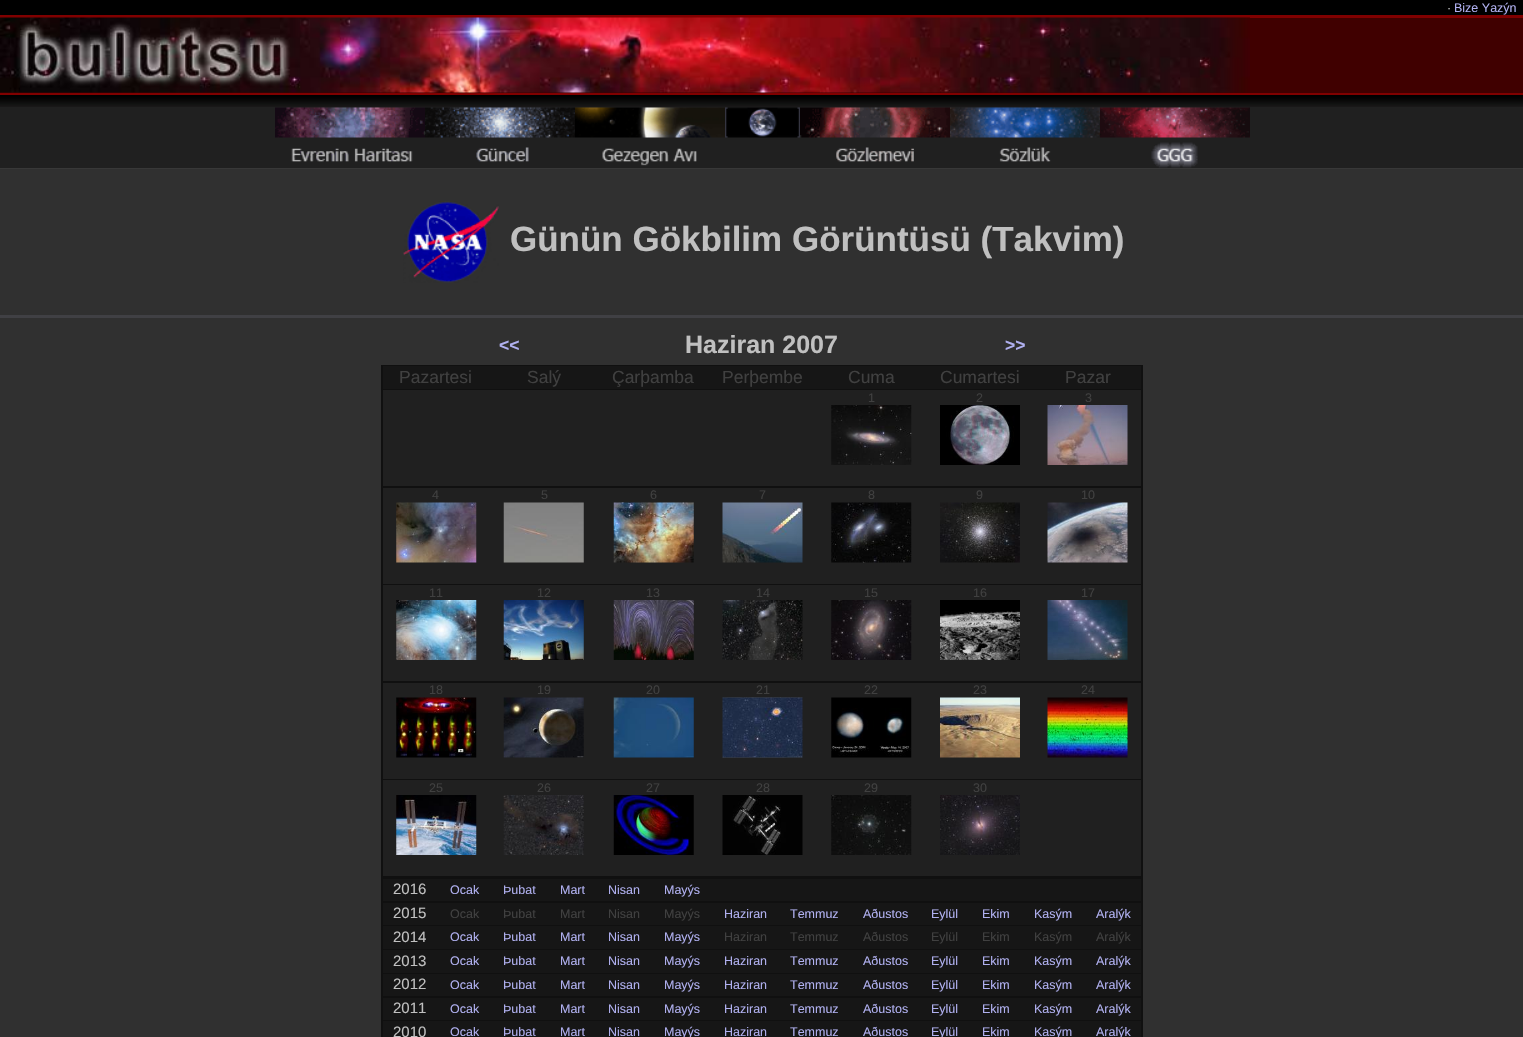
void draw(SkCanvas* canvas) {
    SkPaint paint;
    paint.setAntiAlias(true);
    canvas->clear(0xFF303030);
    paint.setColor(0xFF000000);
    canvas->drawRect(SkRect::MakeXYWH(0, 0, 1523, 15), paint);
    SkFont font1(fontMgr->matchFamilyStyle("Liberation Sans", SkFontStyle::Normal()), 12.5f);
    font1.setSubpixel(true);
    paint.setColor(0xFFC0C0C0);
    canvas->drawString("·", 1447, 12, font1, paint);
    paint.setColor(0xFFB0B0F0);
    canvas->drawString("Bize Yazýn", 1454, 12, font1, paint);
    paint.setColor(0xFF800000);
    canvas->drawRect(SkRect::MakeXYWH(0, 15, 1523, 3), paint);
    paint.setColor(0xFF400000);
    canvas->drawRect(SkRect::MakeXYWH(0, 18, 1523, 75), paint);
    canvas->drawImageRect(SkImages::DeferredFromEncodedData(SkData::MakeFromFileName("img1.png")), SkRect::MakeXYWH(0, 17, 1250, 76), SkSamplingOptions());
    paint.setColor(0xFF800000);
    canvas->drawRect(SkRect::MakeXYWH(0, 93, 1523, 2), paint);
    paint.setColor(0xFF202020);
    canvas->drawRect(SkRect::MakeXYWH(0, 107, 1523, 61), paint);
    canvas->drawImageRect(SkImages::DeferredFromEncodedData(SkData::MakeFromFileName("img2.png")), SkRect::MakeXYWH(0, 95, 1523, 12), SkSamplingOptions());
    canvas->drawImageRect(SkImages::DeferredFromEncodedData(SkData::MakeFromFileName("img3.png")), SkRect::MakeXYWH(275, 107, 150, 55), SkSamplingOptions());
    canvas->drawImageRect(SkImages::DeferredFromEncodedData(SkData::MakeFromFileName("img4.png")), SkRect::MakeXYWH(425, 107, 150, 55), SkSamplingOptions());
    canvas->drawImageRect(SkImages::DeferredFromEncodedData(SkData::MakeFromFileName("img5.png")), SkRect::MakeXYWH(575, 107, 150, 59), SkSamplingOptions());
    canvas->drawImageRect(SkImages::DeferredFromEncodedData(SkData::MakeFromFileName("img6.png")), SkRect::MakeXYWH(725, 107, 75, 31), SkSamplingOptions());
    canvas->drawImageRect(SkImages::DeferredFromEncodedData(SkData::MakeFromFileName("img7.png")), SkRect::MakeXYWH(800, 107, 150, 55), SkSamplingOptions());
    canvas->drawImageRect(SkImages::DeferredFromEncodedData(SkData::MakeFromFileName("img8.png")), SkRect::MakeXYWH(950, 107, 150, 55), SkSamplingOptions());
    canvas->drawImageRect(SkImages::DeferredFromEncodedData(SkData::MakeFromFileName("img9.png")), SkRect::MakeXYWH(1100, 107, 150, 61), SkSamplingOptions());
    paint.setColor(0xFF383838);
    canvas->drawRect(SkRect::MakeXYWH(0, 168, 1523, 1), paint);
    canvas->drawImageRect(SkImages::DeferredFromEncodedData(SkData::MakeFromFileName("img10.png")), SkRect::MakeXYWH(403, 201, 96, 82), SkSamplingOptions());
    SkFont font2(fontMgr->matchFamilyStyle("Liberation Sans", SkFontStyle::Bold()), 35);
    font2.setSubpixel(true);
    paint.setColor(0xFFC0C0C0);
    canvas->drawString("Günün Gökbilim Görüntüsü (Takvim)", 510, 251, font2, paint);
    paint.setColor(0xFF404044);
    canvas->drawRect(SkRect::MakeXYWH(0, 315, 1523, 3), paint);
    SkFont font3(fontMgr->matchFamilyStyle("Liberation Sans", SkFontStyle::Bold()), 17.5f);
    font3.setSubpixel(true);
    paint.setColor(0xFFB0B0F0);
    canvas->drawString("<<", 499, 351, font3, paint);
    SkFont font4(fontMgr->matchFamilyStyle("Liberation Sans", SkFontStyle::Bold()), 25);
    font4.setSubpixel(true);
    paint.setColor(0xFFC0C0C0);
    canvas->drawString("Haziran 2007", 685, 353, font4, paint);
    paint.setColor(0xFFB0B0F0);
    canvas->drawString(">>", 1005, 351, font3, paint);
    paint.setColor(0xFF101010);
    canvas->drawRect(SkRect::MakeXYWH(381, 365, 762, 672), paint);
    paint.setColor(0xFF161616);
    canvas->drawRect(SkRect::MakeXYWH(383, 366, 758, 23), paint);
    SkFont font5(fontMgr->matchFamilyStyle("Liberation Sans", SkFontStyle::Normal()), 17.5f);
    font5.setSubpixel(true);
    paint.setColor(0xFF404040);
    canvas->drawString("Pazartesi", 399, 383, font5, paint);
    canvas->drawString("Salý", 527, 383, font5, paint);
    canvas->drawString("Çarþamba", 612, 383, font5, paint);
    canvas->drawString("Perþembe", 722, 383, font5, paint);
    canvas->drawString("Cuma", 848, 383, font5, paint);
    canvas->drawString("Cumartesi", 940, 383, font5, paint);
    canvas->drawString("Pazar", 1065, 383, font5, paint);
    paint.setColor(0xFF202020);
    canvas->drawRect(SkRect::MakeXYWH(383, 390, 758, 96), paint);
    paint.setColor(0xFF404040);
    canvas->drawString("1", 868, 402, font1, paint);
    canvas->drawImageRect(SkImages::DeferredFromEncodedData(SkData::MakeFromFileName("img11.png")), SkRect::MakeXYWH(831, 405, 81, 60), SkSamplingOptions());
    canvas->drawString("2", 976, 402, font1, paint);
    canvas->drawImageRect(SkImages::DeferredFromEncodedData(SkData::MakeFromFileName("img12.png")), SkRect::MakeXYWH(940, 405, 80, 60), SkSamplingOptions());
    canvas->drawString("3", 1085, 402, font1, paint);
    canvas->drawImageRect(SkImages::DeferredFromEncodedData(SkData::MakeFromFileName("img13.png")), SkRect::MakeXYWH(1047, 405, 81, 60), SkSamplingOptions());
    paint.setColor(0xFF202020);
    canvas->drawRect(SkRect::MakeXYWH(383, 488, 758, 96), paint);
    paint.setColor(0xFF404040);
    canvas->drawString("4", 432, 499, font1, paint);
    canvas->drawImageRect(SkImages::DeferredFromEncodedData(SkData::MakeFromFileName("img14.png")), SkRect::MakeXYWH(396, 502, 81, 61), SkSamplingOptions());
    canvas->drawString("5", 541, 499, font1, paint);
    canvas->drawImageRect(SkImages::DeferredFromEncodedData(SkData::MakeFromFileName("img15.png")), SkRect::MakeXYWH(503, 502, 81, 61), SkSamplingOptions());
    canvas->drawString("6", 650, 499, font1, paint);
    canvas->drawImageRect(SkImages::DeferredFromEncodedData(SkData::MakeFromFileName("img16.png")), SkRect::MakeXYWH(613, 502, 81, 61), SkSamplingOptions());
    canvas->drawString("7", 759, 499, font1, paint);
    canvas->drawImageRect(SkImages::DeferredFromEncodedData(SkData::MakeFromFileName("img17.png")), SkRect::MakeXYWH(722, 502, 81, 61), SkSamplingOptions());
    canvas->drawString("8", 868, 499, font1, paint);
    canvas->drawImageRect(SkImages::DeferredFromEncodedData(SkData::MakeFromFileName("img18.png")), SkRect::MakeXYWH(831, 502, 81, 61), SkSamplingOptions());
    canvas->drawString("9", 976, 499, font1, paint);
    canvas->drawImageRect(SkImages::DeferredFromEncodedData(SkData::MakeFromFileName("img19.png")), SkRect::MakeXYWH(940, 502, 80, 61), SkSamplingOptions());
    canvas->drawString("10", 1081, 499, font1, paint);
    canvas->drawImageRect(SkImages::DeferredFromEncodedData(SkData::MakeFromFileName("img20.png")), SkRect::MakeXYWH(1047, 502, 81, 61), SkSamplingOptions());
    paint.setColor(0xFF202020);
    canvas->drawRect(SkRect::MakeXYWH(383, 585, 758, 96), paint);
    paint.setColor(0xFF404040);
    canvas->drawString("11", 429, 597, font1, paint);
    canvas->drawImageRect(SkImages::DeferredFromEncodedData(SkData::MakeFromFileName("img21.png")), SkRect::MakeXYWH(396, 600, 81, 60), SkSamplingOptions());
    canvas->drawString("12", 537, 597, font1, paint);
    canvas->drawImageRect(SkImages::DeferredFromEncodedData(SkData::MakeFromFileName("img22.png")), SkRect::MakeXYWH(503, 600, 81, 60), SkSamplingOptions());
    canvas->drawString("13", 646, 597, font1, paint);
    canvas->drawImageRect(SkImages::DeferredFromEncodedData(SkData::MakeFromFileName("img23.png")), SkRect::MakeXYWH(613, 600, 81, 60), SkSamplingOptions());
    canvas->drawString("14", 756, 597, font1, paint);
    canvas->drawImageRect(SkImages::DeferredFromEncodedData(SkData::MakeFromFileName("img24.png")), SkRect::MakeXYWH(722, 600, 81, 60), SkSamplingOptions());
    canvas->drawString("15", 864, 597, font1, paint);
    canvas->drawImageRect(SkImages::DeferredFromEncodedData(SkData::MakeFromFileName("img25.png")), SkRect::MakeXYWH(831, 600, 81, 60), SkSamplingOptions());
    canvas->drawString("16", 973, 597, font1, paint);
    canvas->drawImageRect(SkImages::DeferredFromEncodedData(SkData::MakeFromFileName("img26.png")), SkRect::MakeXYWH(940, 600, 80, 60), SkSamplingOptions());
    canvas->drawString("17", 1081, 597, font1, paint);
    canvas->drawImageRect(SkImages::DeferredFromEncodedData(SkData::MakeFromFileName("img27.png")), SkRect::MakeXYWH(1047, 600, 81, 60), SkSamplingOptions());
    paint.setColor(0xFF202020);
    canvas->drawRect(SkRect::MakeXYWH(383, 683, 758, 96), paint);
    paint.setColor(0xFF404040);
    canvas->drawString("18", 429, 694, font1, paint);
    canvas->drawImageRect(SkImages::DeferredFromEncodedData(SkData::MakeFromFileName("img28.png")), SkRect::MakeXYWH(396, 697, 81, 61), SkSamplingOptions());
    canvas->drawString("19", 537, 694, font1, paint);
    canvas->drawImageRect(SkImages::DeferredFromEncodedData(SkData::MakeFromFileName("img29.png")), SkRect::MakeXYWH(503, 697, 81, 61), SkSamplingOptions());
    canvas->drawString("20", 646, 694, font1, paint);
    canvas->drawImageRect(SkImages::DeferredFromEncodedData(SkData::MakeFromFileName("img30.png")), SkRect::MakeXYWH(613, 697, 81, 61), SkSamplingOptions());
    canvas->drawString("21", 756, 694, font1, paint);
    canvas->drawImageRect(SkImages::DeferredFromEncodedData(SkData::MakeFromFileName("img31.png")), SkRect::MakeXYWH(722, 697, 81, 61), SkSamplingOptions());
    canvas->drawString("22", 864, 694, font1, paint);
    canvas->drawImageRect(SkImages::DeferredFromEncodedData(SkData::MakeFromFileName("img32.png")), SkRect::MakeXYWH(831, 697, 81, 61), SkSamplingOptions());
    canvas->drawString("23", 973, 694, font1, paint);
    canvas->drawImageRect(SkImages::DeferredFromEncodedData(SkData::MakeFromFileName("img33.png")), SkRect::MakeXYWH(940, 697, 80, 61), SkSamplingOptions());
    canvas->drawString("24", 1081, 694, font1, paint);
    canvas->drawImageRect(SkImages::DeferredFromEncodedData(SkData::MakeFromFileName("img34.png")), SkRect::MakeXYWH(1047, 697, 81, 61), SkSamplingOptions());
    paint.setColor(0xFF202020);
    canvas->drawRect(SkRect::MakeXYWH(383, 780, 758, 96), paint);
    paint.setColor(0xFF404040);
    canvas->drawString("25", 429, 792, font1, paint);
    canvas->drawImageRect(SkImages::DeferredFromEncodedData(SkData::MakeFromFileName("img35.png")), SkRect::MakeXYWH(396, 795, 81, 60), SkSamplingOptions());
    canvas->drawString("26", 537, 792, font1, paint);
    canvas->drawImageRect(SkImages::DeferredFromEncodedData(SkData::MakeFromFileName("img36.png")), SkRect::MakeXYWH(503, 795, 81, 60), SkSamplingOptions());
    canvas->drawString("27", 646, 792, font1, paint);
    canvas->drawImageRect(SkImages::DeferredFromEncodedData(SkData::MakeFromFileName("img37.png")), SkRect::MakeXYWH(613, 795, 81, 60), SkSamplingOptions());
    canvas->drawString("28", 756, 792, font1, paint);
    canvas->drawImageRect(SkImages::DeferredFromEncodedData(SkData::MakeFromFileName("img38.png")), SkRect::MakeXYWH(722, 795, 81, 60), SkSamplingOptions());
    canvas->drawString("29", 864, 792, font1, paint);
    canvas->drawImageRect(SkImages::DeferredFromEncodedData(SkData::MakeFromFileName("img39.png")), SkRect::MakeXYWH(831, 795, 81, 60), SkSamplingOptions());
    canvas->drawString("30", 973, 792, font1, paint);
    canvas->drawImageRect(SkImages::DeferredFromEncodedData(SkData::MakeFromFileName("img40.png")), SkRect::MakeXYWH(940, 795, 80, 60), SkSamplingOptions());
    paint.setColor(0xFF161616);
    canvas->drawRect(SkRect::MakeXYWH(383, 879, 758, 22), paint);
    SkFont font6(fontMgr->matchFamilyStyle("Liberation Sans", SkFontStyle::Normal()), 15);
    font6.setSubpixel(true);
    paint.setColor(0xFFC0C0C0);
    canvas->drawString("2016", 393, 894, font6, paint);
    paint.setColor(0xFFB0B0F0);
    canvas->drawString("Ocak", 450, 894, font1, paint);
    canvas->drawString("Þubat", 503, 894, font1, paint);
    canvas->drawString("Mart", 560, 894, font1, paint);
    canvas->drawString("Nisan", 608, 894, font1, paint);
    canvas->drawString("Mayýs", 664, 894, font1, paint);
    paint.setColor(0xFF161616);
    canvas->drawRect(SkRect::MakeXYWH(383, 903, 758, 22), paint);
    paint.setColor(0xFFC0C0C0);
    canvas->drawString("2015", 393, 918, font6, paint);
    paint.setColor(0xFF404040);
    canvas->drawString("Ocak", 450, 918, font1, paint);
    canvas->drawString("Þubat", 503, 918, font1, paint);
    canvas->drawString("Mart", 560, 918, font1, paint);
    canvas->drawString("Nisan", 608, 918, font1, paint);
    canvas->drawString("Mayýs", 664, 918, font1, paint);
    paint.setColor(0xFFB0B0F0);
    canvas->drawString("Haziran", 724, 918, font1, paint);
    canvas->drawString("Temmuz", 790, 918, font1, paint);
    canvas->drawString("Aðustos", 863, 918, font1, paint);
    canvas->drawString("Eylül", 931, 918, font1, paint);
    canvas->drawString("Ekim", 982, 918, font1, paint);
    canvas->drawString("Kasým", 1034, 918, font1, paint);
    canvas->drawString("Aralýk", 1096, 918, font1, paint);
    paint.setColor(0xFF161616);
    canvas->drawRect(SkRect::MakeXYWH(383, 926, 758, 23), paint);
    paint.setColor(0xFFC0C0C0);
    canvas->drawString("2014", 393, 942, font6, paint);
    paint.setColor(0xFFB0B0F0);
    canvas->drawString("Ocak", 450, 941, font1, paint);
    canvas->drawString("Þubat", 503, 941, font1, paint);
    canvas->drawString("Mart", 560, 941, font1, paint);
    canvas->drawString("Nisan", 608, 941, font1, paint);
    canvas->drawString("Mayýs", 664, 941, font1, paint);
    paint.setColor(0xFF404040);
    canvas->drawString("Haziran", 724, 941, font1, paint);
    canvas->drawString("Temmuz", 790, 941, font1, paint);
    canvas->drawString("Aðustos", 863, 941, font1, paint);
    canvas->drawString("Eylül", 931, 941, font1, paint);
    canvas->drawString("Ekim", 982, 941, font1, paint);
    canvas->drawString("Kasým", 1034, 941, font1, paint);
    canvas->drawString("Aralýk", 1096, 941, font1, paint);
    paint.setColor(0xFF161616);
    canvas->drawRect(SkRect::MakeXYWH(383, 950, 758, 23), paint);
    paint.setColor(0xFFC0C0C0);
    canvas->drawString("2013", 393, 966, font6, paint);
    paint.setColor(0xFFB0B0F0);
    canvas->drawString("Ocak", 450, 965, font1, paint);
    canvas->drawString("Þubat", 503, 965, font1, paint);
    canvas->drawString("Mart", 560, 965, font1, paint);
    canvas->drawString("Nisan", 608, 965, font1, paint);
    canvas->drawString("Mayýs", 664, 965, font1, paint);
    canvas->drawString("Haziran", 724, 965, font1, paint);
    canvas->drawString("Temmuz", 790, 965, font1, paint);
    canvas->drawString("Aðustos", 863, 965, font1, paint);
    canvas->drawString("Eylül", 931, 965, font1, paint);
    canvas->drawString("Ekim", 982, 965, font1, paint);
    canvas->drawString("Kasým", 1034, 965, font1, paint);
    canvas->drawString("Aralýk", 1096, 965, font1, paint);
    paint.setColor(0xFF161616);
    canvas->drawRect(SkRect::MakeXYWH(383, 974, 758, 22), paint);
    paint.setColor(0xFFC0C0C0);
    canvas->drawString("2012", 393, 989, font6, paint);
    paint.setColor(0xFFB0B0F0);
    canvas->drawString("Ocak", 450, 989, font1, paint);
    canvas->drawString("Þubat", 503, 989, font1, paint);
    canvas->drawString("Mart", 560, 989, font1, paint);
    canvas->drawString("Nisan", 608, 989, font1, paint);
    canvas->drawString("Mayýs", 664, 989, font1, paint);
    canvas->drawString("Haziran", 724, 989, font1, paint);
    canvas->drawString("Temmuz", 790, 989, font1, paint);
    canvas->drawString("Aðustos", 863, 989, font1, paint);
    canvas->drawString("Eylül", 931, 989, font1, paint);
    canvas->drawString("Ekim", 982, 989, font1, paint);
    canvas->drawString("Kasým", 1034, 989, font1, paint);
    canvas->drawString("Aralýk", 1096, 989, font1, paint);
    paint.setColor(0xFF161616);
    canvas->drawRect(SkRect::MakeXYWH(383, 998, 758, 22), paint);
    paint.setColor(0xFFC0C0C0);
    canvas->drawString("2011", 393, 1013, font6, paint);
    paint.setColor(0xFFB0B0F0);
    canvas->drawString("Ocak", 450, 1013, font1, paint);
    canvas->drawString("Þubat", 503, 1013, font1, paint);
    canvas->drawString("Mart", 560, 1013, font1, paint);
    canvas->drawString("Nisan", 608, 1013, font1, paint);
    canvas->drawString("Mayýs", 664, 1013, font1, paint);
    canvas->drawString("Haziran", 724, 1013, font1, paint);
    canvas->drawString("Temmuz", 790, 1013, font1, paint);
    canvas->drawString("Aðustos", 863, 1013, font1, paint);
    canvas->drawString("Eylül", 931, 1013, font1, paint);
    canvas->drawString("Ekim", 982, 1013, font1, paint);
    canvas->drawString("Kasým", 1034, 1013, font1, paint);
    canvas->drawString("Aralýk", 1096, 1013, font1, paint);
    paint.setColor(0xFF161616);
    canvas->drawRect(SkRect::MakeXYWH(383, 1021, 758, 16), paint);
    paint.setColor(0xFFC0C0C0);
    canvas->drawString("2010", 393, 1037, font6, paint);
    paint.setColor(0xFFB0B0F0);
    canvas->drawString("Ocak", 450, 1036, font1, paint);
    canvas->drawString("Þubat", 503, 1036, font1, paint);
    canvas->drawString("Mart", 560, 1036, font1, paint);
    canvas->drawString("Nisan", 608, 1036, font1, paint);
    canvas->drawString("Mayýs", 664, 1036, font1, paint);
    canvas->drawString("Haziran", 724, 1036, font1, paint);
    canvas->drawString("Temmuz", 790, 1036, font1, paint);
    canvas->drawString("Aðustos", 863, 1036, font1, paint);
    canvas->drawString("Eylül", 931, 1036, font1, paint);
    canvas->drawString("Ekim", 982, 1036, font1, paint);
    canvas->drawString("Kasým", 1034, 1036, font1, paint);
    canvas->drawString("Aralýk", 1096, 1036, font1, paint);
}
